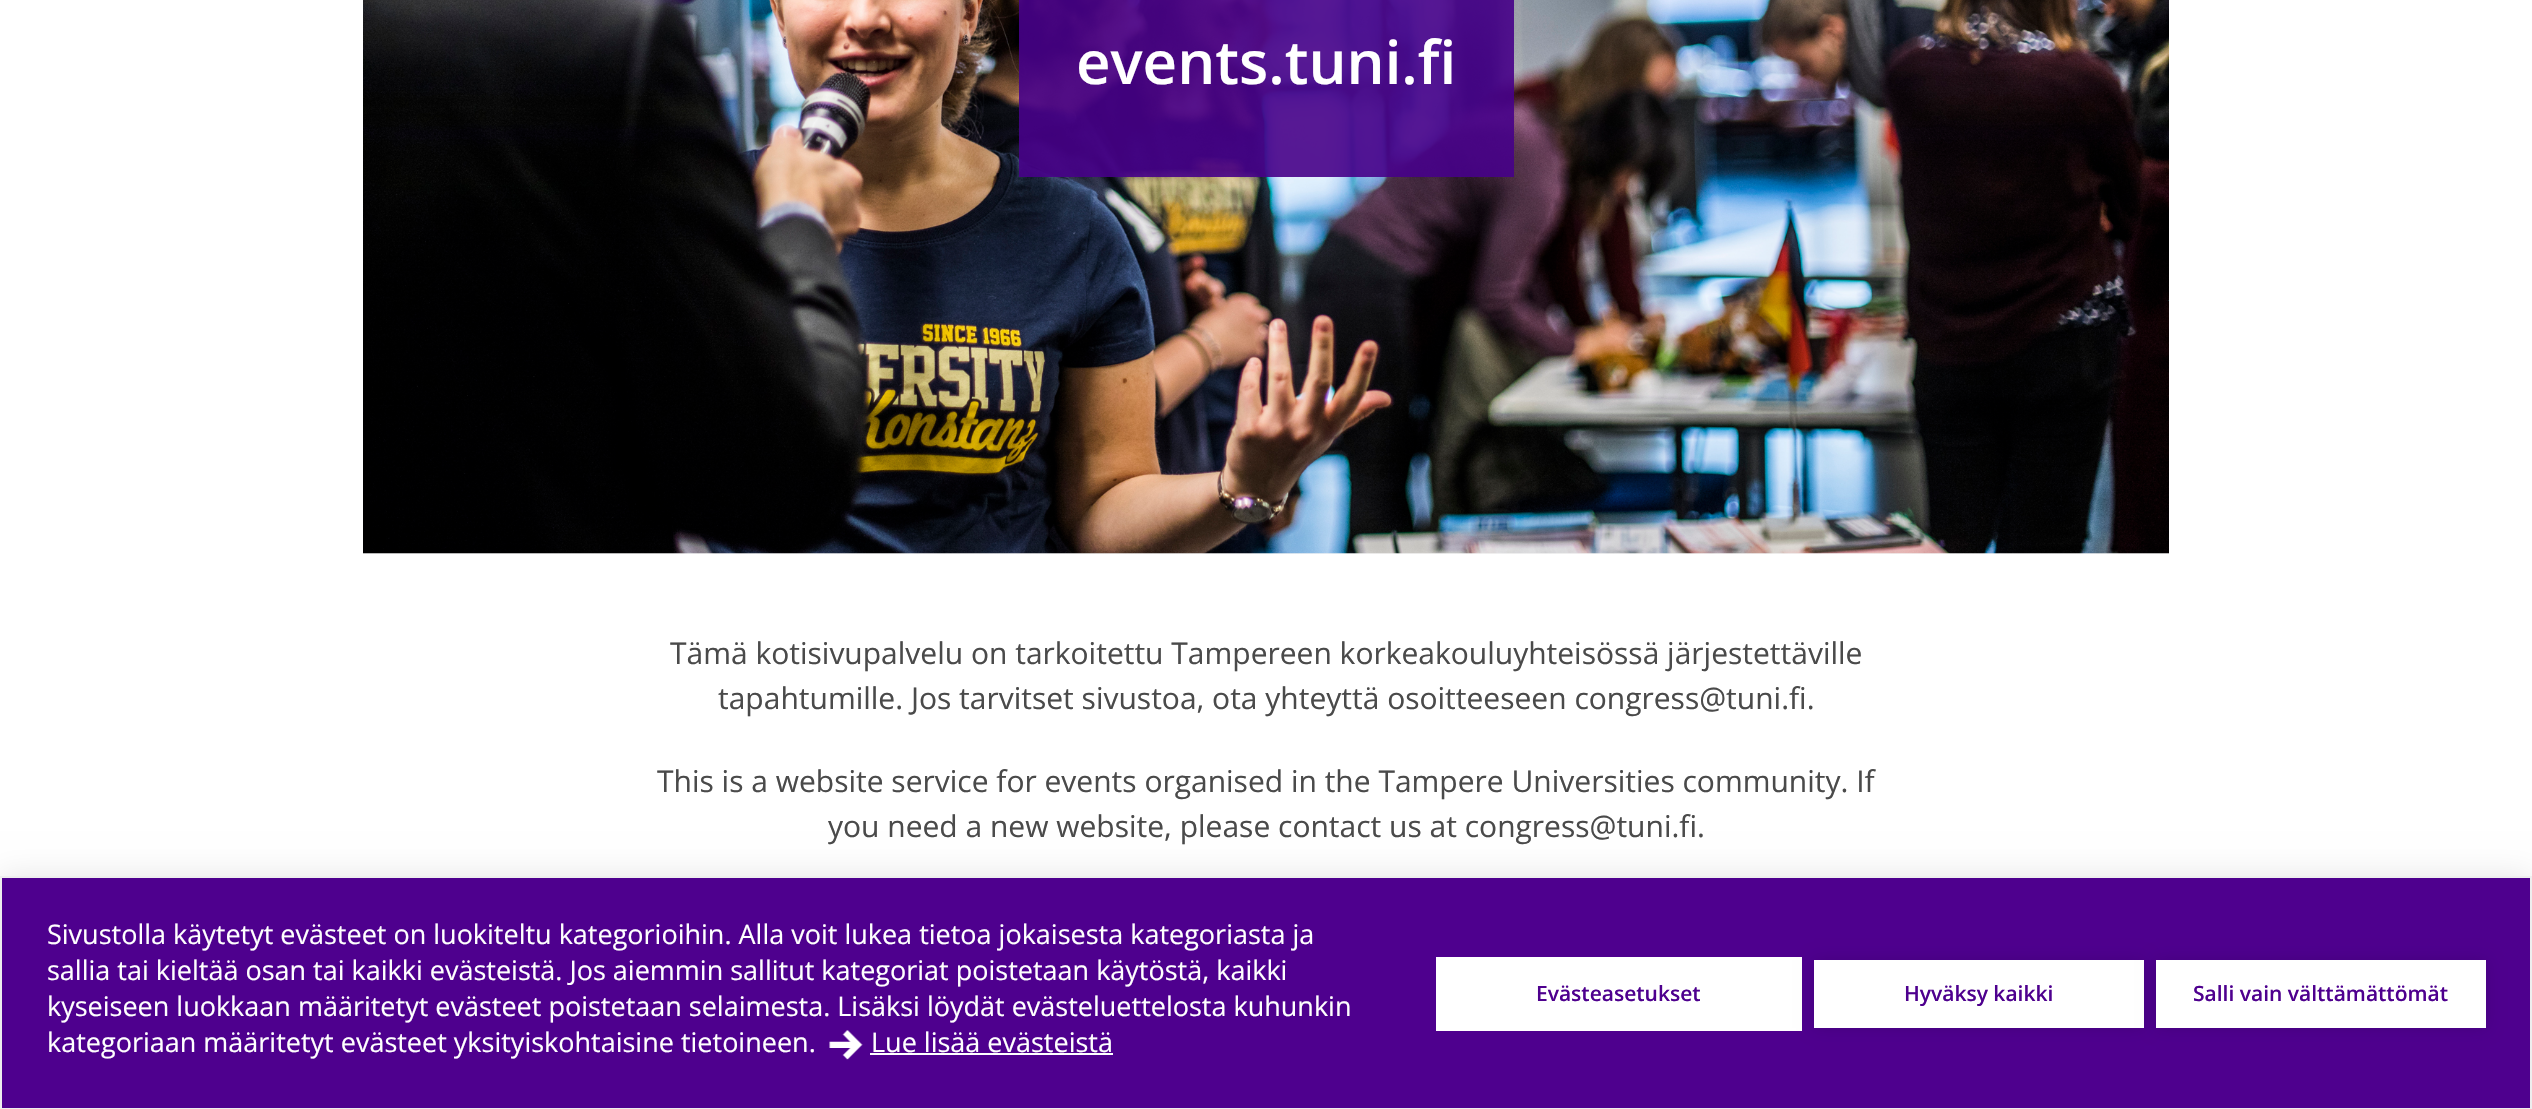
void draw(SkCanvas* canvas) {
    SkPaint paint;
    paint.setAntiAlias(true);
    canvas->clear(0xFFFFFFFF);
    paint.setColor(0xFFF5F5F5);
    canvas->drawRect(SkRect::MakeXYWH(363, 553, 1806, 1), paint);
    canvas->drawImageRect(SkImages::DeferredFromEncodedData(SkData::MakeFromFileName("img1.png")), SkRect::MakeXYWH(363, 0, 1806, 554), SkSamplingOptions());
    paint.setColor(0xE6460088);
    canvas->drawRect(SkRect::MakeXYWH(1019, 0, 495, 177), paint);
    SkFont font1(fontMgr->matchFamilyStyle("Open Sans", SkFontStyle(600, SkFontStyle::kNormal_Width, SkFontStyle::kUpright_Slant)), 60);
    font1.setSubpixel(true);
    paint.setColor(0xFFFFFFFF);
    canvas->drawString("events.tuni.fi", 1076, 84, font1, paint);
    SkFont font2(fontMgr->matchFamilyStyle("Open Sans", SkFontStyle::Normal()), 30);
    font2.setSubpixel(true);
    paint.setColor(0xFF4A4A4A);
    canvas->drawString("Tämä kotisivupalvelu on tarkoitettu Tampereen korkeakouluyhteisössä järjestettäville", 670, 664, font2, paint);
    canvas->drawString("tapahtumille. Jos tarvitset sivustoa, ota yhteyttä osoitteeseen congress@tuni.fi.", 718, 709, font2, paint);
    canvas->drawString("This is a website service for events organised in the Tampere Universities community. If", 657, 792, font2, paint);
    canvas->drawString("you need a new website, please contact us at congress@tuni.fi.", 828, 837, font2, paint);
    paint.setColor(0x1A000000);
    paint.setMaskFilter(SkMaskFilter::MakeBlur(kNormal_SkBlurStyle, 15));
    canvas->drawRect(SkRect::MakeXYWH(0, 876, 2532, 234), paint);
    paint.setMaskFilter(nullptr);
    paint.setColor(0xFF4E008E);
    canvas->drawRect(SkRect::MakeXYWH(1, 877, 2530, 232), paint);
    paint.setStyle(SkPaint::kStroke_Style);
    paint.setStrokeWidth(2);
    paint.setColor(0xFFEEEEEE);
    canvas->drawRect(SkRect::MakeXYWH(1, 877, 2530, 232), paint);
    SkFont font3(fontMgr->matchFamilyStyle("Open Sans", SkFontStyle::Normal()), 27);
    font3.setSubpixel(true);
    paint.setStyle(SkPaint::kFill_Style);
    paint.setColor(0xFFFFFFFF);
    canvas->drawString("Sivustolla käytetyt evästeet on luokiteltu kategorioihin. Alla voit lukea tietoa jokaisesta kategoriasta ja", 47, 944, font3, paint);
    canvas->drawString("sallia tai kieltää osan tai kaikki evästeistä. Jos aiemmin sallitut kategoriat poistetaan käytöstä, kaikki", 47, 980, font3, paint);
    canvas->drawString("kyseiseen luokkaan määritetyt evästeet poistetaan selaimesta. Lisäksi löydät evästeluettelosta kuhunkin", 47, 1016, font3, paint);
    canvas->drawString("kategoriaan määritetyt evästeet yksityiskohtaisine tietoineen.", 47, 1052, font3, paint);
    canvas->drawImageRect(SkImages::DeferredFromEncodedData(SkData::MakeFromFileName("img2.png")), SkRect::MakeXYWH(829, 1030, 34, 30), SkSamplingOptions());
    canvas->drawString("Lue lisää evästeistä", 871, 1052, font3, paint);
    canvas->drawRect(SkRect::MakeXYWH(870, 1053, 243, 2), paint);
    canvas->drawRect(SkRect::MakeXYWH(1436, 957, 366, 74), paint);
    SkFont font4(fontMgr->matchFamilyStyle("Open Sans", SkFontStyle(600, SkFontStyle::kNormal_Width, SkFontStyle::kUpright_Slant)), 21);
    font4.setSubpixel(true);
    paint.setColor(0xFF4E008E);
    canvas->drawString("Evästeasetukset", 1536, 1001, font4, paint);
    paint.setColor(0x1F000000);
    paint.setMaskFilter(SkMaskFilter::MakeBlur(kNormal_SkBlurStyle, 7.5f));
    canvas->drawRect(SkRect::MakeXYWH(1814, 960, 330, 68), paint);
    paint.setMaskFilter(nullptr);
    paint.setColor(0xFFFFFFFF);
    canvas->drawRect(SkRect::MakeXYWH(1814, 960, 330, 68), paint);
    paint.setColor(0xFF4E008E);
    canvas->drawString("Hyväksy kaikki", 1904, 1001, font4, paint);
    paint.setColor(0x1F000000);
    paint.setMaskFilter(SkMaskFilter::MakeBlur(kNormal_SkBlurStyle, 7.5f));
    canvas->drawRect(SkRect::MakeXYWH(2156, 960, 330, 68), paint);
    paint.setMaskFilter(nullptr);
    paint.setColor(0xFFFFFFFF);
    canvas->drawRect(SkRect::MakeXYWH(2156, 960, 330, 68), paint);
    paint.setColor(0xFF4E008E);
    canvas->drawString("Salli vain välttämättömät", 2193, 1001, font4, paint);
}
